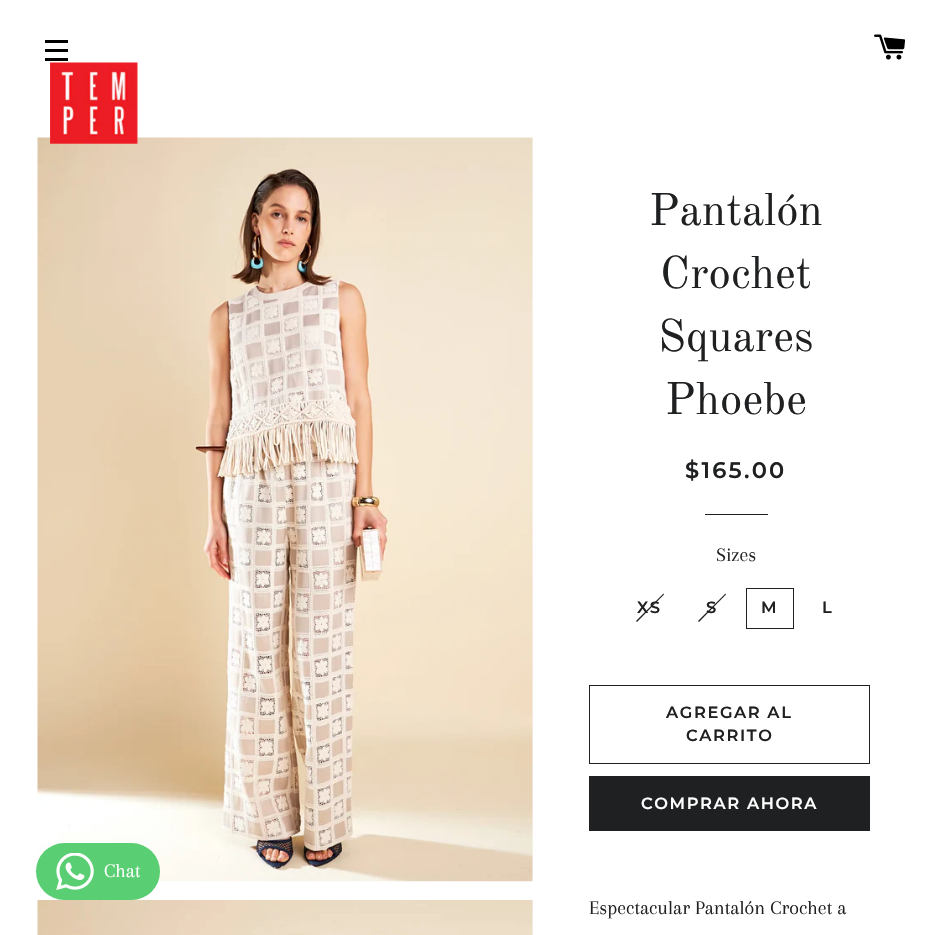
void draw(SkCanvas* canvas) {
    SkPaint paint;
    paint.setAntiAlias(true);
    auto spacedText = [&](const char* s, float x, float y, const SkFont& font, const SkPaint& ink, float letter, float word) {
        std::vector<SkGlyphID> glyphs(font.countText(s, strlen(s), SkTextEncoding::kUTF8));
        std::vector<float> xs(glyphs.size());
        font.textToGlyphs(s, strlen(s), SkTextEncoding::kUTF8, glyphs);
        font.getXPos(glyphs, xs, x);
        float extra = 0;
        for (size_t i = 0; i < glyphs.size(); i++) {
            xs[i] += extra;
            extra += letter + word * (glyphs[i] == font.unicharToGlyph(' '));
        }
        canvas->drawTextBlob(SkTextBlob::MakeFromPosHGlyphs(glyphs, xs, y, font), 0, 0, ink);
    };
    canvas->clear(0xFFFFFFFF);
    paint.setColor(0xFF000000);
    canvas->drawRect(SkRect::MakeXYWH(45, 40, 23, 3), paint);
    canvas->drawRect(SkRect::MakeXYWH(45, 49, 23, 3), paint);
    canvas->drawRect(SkRect::MakeXYWH(45, 58, 23, 3), paint);
    canvas->drawImageRect(SkImages::DeferredFromEncodedData(SkData::MakeFromFileName("img1.png")), SkRect::MakeXYWH(874, 34, 32, 26), SkSamplingOptions());
    paint.setColor(0xFFF6F6F6);
    canvas->drawRect(SkRect::MakeXYWH(532, 138, 1, 743), paint);
    canvas->drawImageRect(SkImages::DeferredFromEncodedData(SkData::MakeFromFileName("img4.png")), SkRect::MakeXYWH(37, 137, 496, 745), SkSamplingOptions());
    canvas->drawImageRect(SkImages::DeferredFromEncodedData(SkData::MakeFromFileName("img2.png")), SkRect::MakeXYWH(50, 62, 88, 82), SkSamplingOptions());
    paint.setColor(0xFF59CE72);
    canvas->drawRoundRect(SkRect::MakeXYWH(36, 843, 124, 57), 28.5f, 28.5f, paint);
    canvas->drawImageRect(SkImages::DeferredFromEncodedData(SkData::MakeFromFileName("img3.png")), SkRect::MakeXYWH(56, 853, 38, 37), SkSamplingOptions());
    SkFont font1(fontMgr->matchFamilyStyle("Arapey", SkFontStyle::Normal()), 20);
    font1.setSubpixel(true);
    paint.setColor(0xFFFFFFFF);
    canvas->drawString("Chat", 104, 877, font1, paint);
    paint.setColor(0xFFF6F6F6);
    canvas->drawRect(SkRect::MakeXYWH(532, 900, 1, 35), paint);
    canvas->drawImageRect(SkImages::DeferredFromEncodedData(SkData::MakeFromFileName("img5.png")), SkRect::MakeXYWH(37, 900, 496, 35), SkSamplingOptions());
    SkFont font2(fontMgr->matchFamilyStyle("Old Standard TT", SkFontStyle::Normal()), 45);
    font2.setSubpixel(true);
    paint.setColor(0xFF1F2021);
    canvas->drawString("Pantalón", 649, 225, font2, paint);
    canvas->drawString("Crochet", 660, 288, font2, paint);
    canvas->drawString("Squares", 658, 351, font2, paint);
    canvas->drawString("Phoebe", 665, 414, font2, paint);
    SkFont font3(fontMgr->matchFamilyStyle("Montserrat", SkFontStyle(600, SkFontStyle::kNormal_Width, SkFontStyle::kUpright_Slant)), 22.5f);
    font3.setSubpixel(true);
    spacedText("$165.00", 685, 478, font3, paint, 2.25f, 0);
    canvas->drawRect(SkRect::MakeXYWH(705, 514, 63, 1), paint);
    canvas->drawString("Sizes", 716, 561, font1, paint);
    canvas->drawPath(SkPathBuilder().moveTo(663.5f, 593.5f).lineTo(664, 594.5f).lineTo(637, 622).lineTo(636, 621).close().detach(), paint);
    SkFont font4(fontMgr->matchFamilyStyle("Montserrat", SkFontStyle(600, SkFontStyle::kNormal_Width, SkFontStyle::kUpright_Slant)), 16.25f);
    font4.setSubpixel(true);
    spacedText("XS", 637, 613, font4, paint, 1.6f, 0);
    canvas->drawPath(SkPathBuilder().moveTo(725.5f, 593.5f).lineTo(726, 594.5f).lineTo(699, 622).lineTo(698, 621).close().detach(), paint);
    spacedText("S", 706, 613, font4, paint, 1.6f, 0);
    paint.setStyle(SkPaint::kStroke_Style);
    paint.setStrokeWidth(1);
    canvas->drawRect(SkRect::MakeXYWH(746.5f, 588.5f, 47, 40), paint);
    paint.setStyle(SkPaint::kFill_Style);
    spacedText("M", 761, 613, font4, paint, 1.6f, 0);
    spacedText("L", 822, 613, font4, paint, 1.6f, 0);
    paint.setStyle(SkPaint::kStroke_Style);
    canvas->drawRect(SkRect::MakeXYWH(589.5f, 685.5f, 280, 78), paint);
    paint.setStyle(SkPaint::kFill_Style);
    spacedText("AGREGAR AL", 666, 718, font4, paint, 1.6f, 0);
    spacedText("CARRITO", 686, 741, font4, paint, 1.6f, 0);
    canvas->drawRect(SkRect::MakeXYWH(589, 776, 281, 55), paint);
    paint.setColor(0xFFFFFFFF);
    spacedText("COMPRAR AHORA", 641, 809, font4, paint, 1.6f, 0);
    paint.setColor(0xFF1F2021);
    canvas->drawString("Espectacular Pantalón Crochet a", 589, 914, font1, paint);
}
